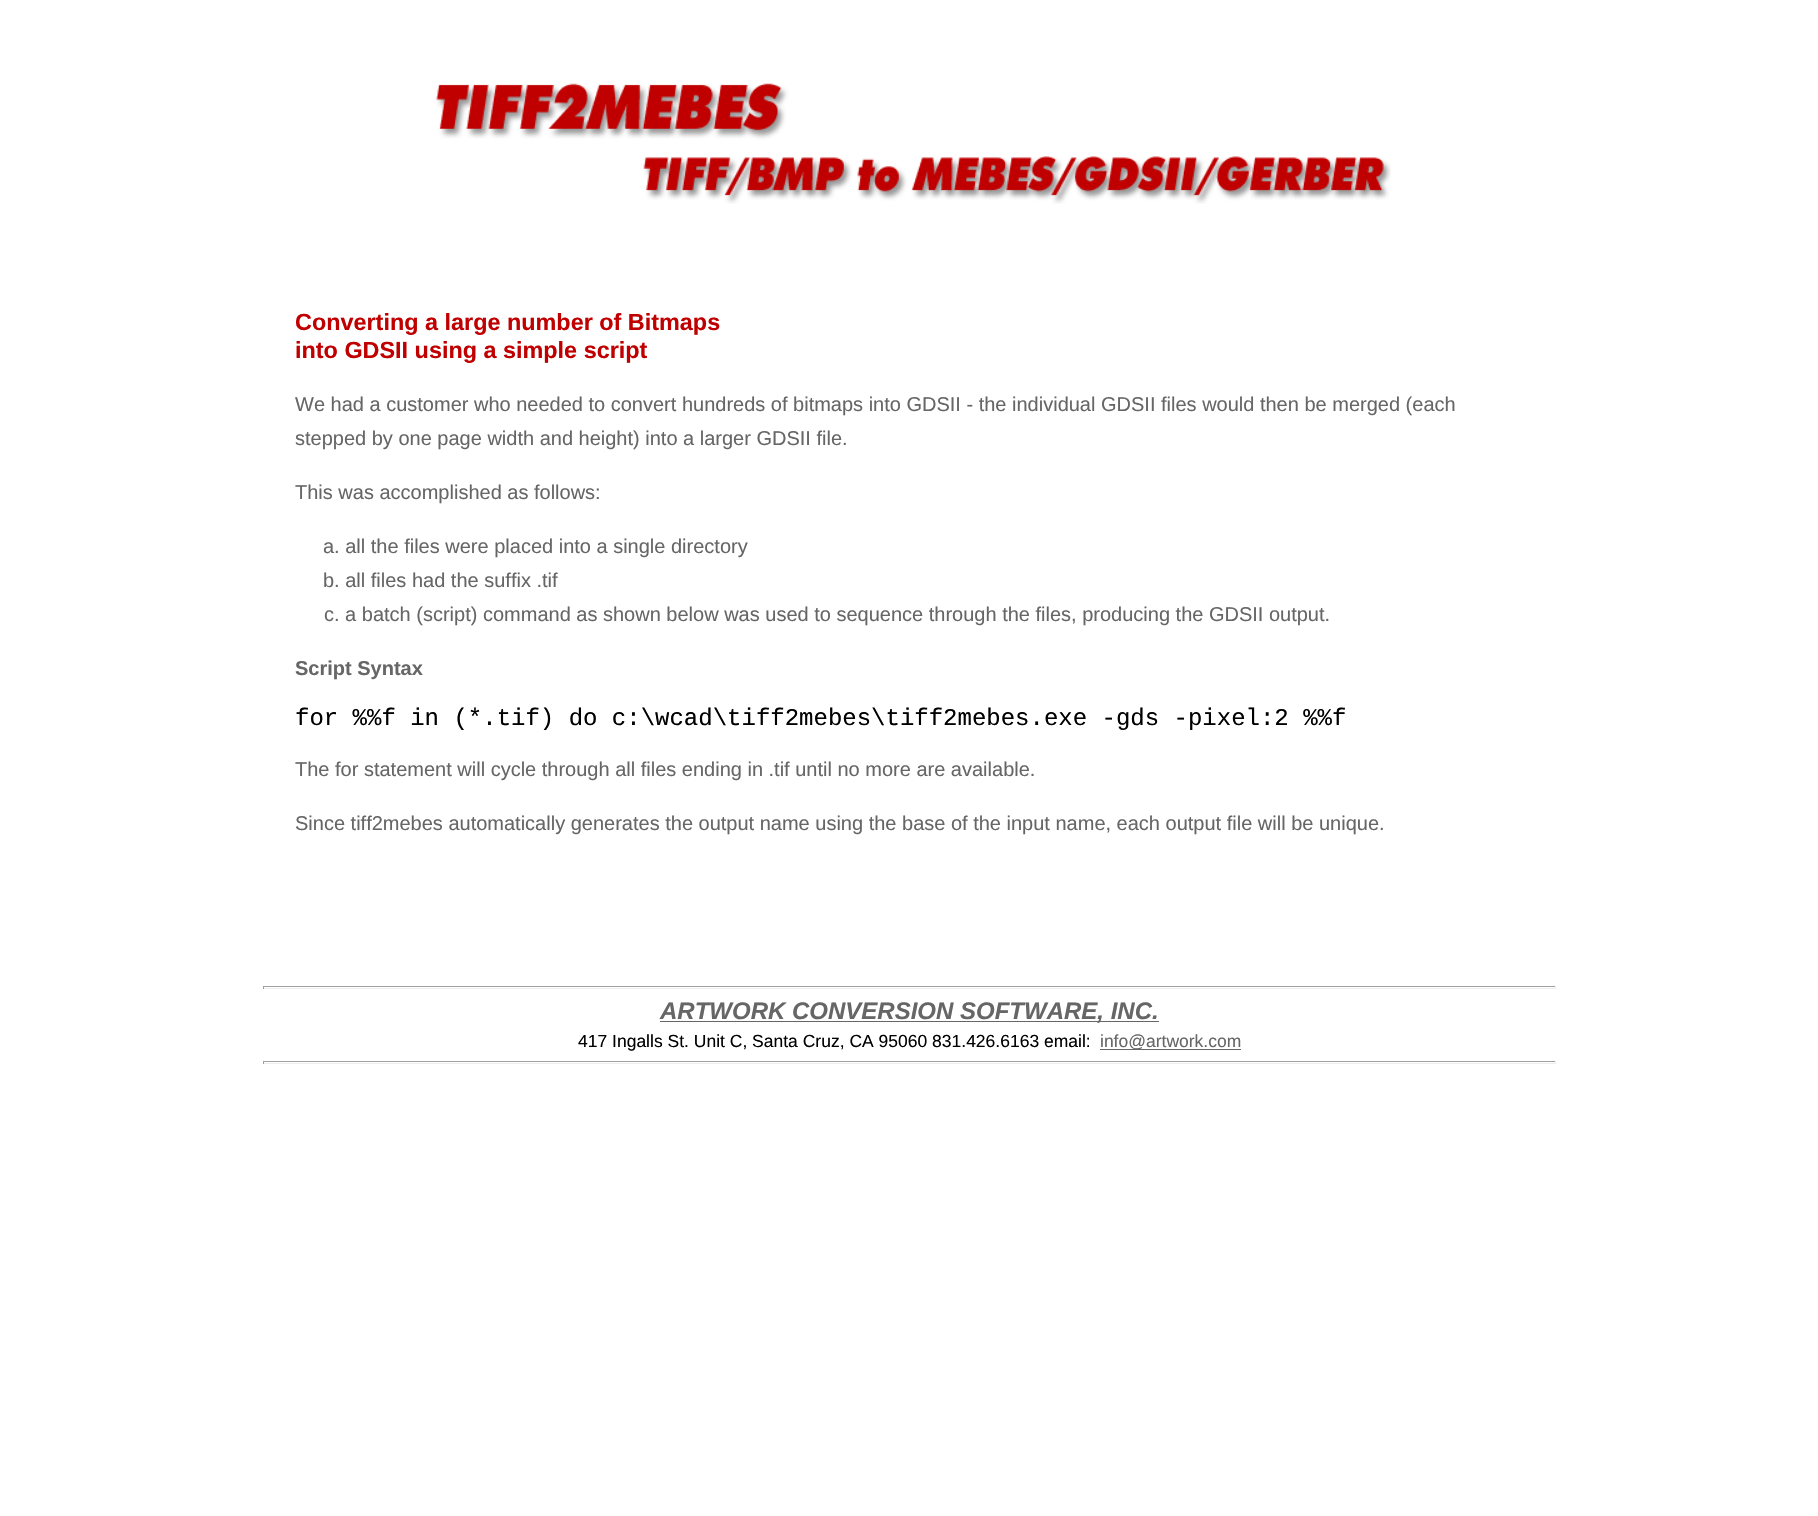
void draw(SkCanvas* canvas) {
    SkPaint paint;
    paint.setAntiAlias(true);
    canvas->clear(0xFFFFFFFF);
    canvas->drawImageRect(SkImages::DeferredFromEncodedData(SkData::MakeFromFileName("img1.png")), SkRect::MakeXYWH(436, 83, 955, 121), SkSamplingOptions());
    SkFont font1(fontMgr->matchFamilyStyle("Liberation Sans", SkFontStyle::Bold()), 23.4f);
    font1.setSubpixel(true);
    paint.setColor(0xFFC00000);
    canvas->drawString("Converting a large number of Bitmaps", 295, 330, font1, paint);
    canvas->drawString("into GDSII using a simple script", 295, 358, font1, paint);
    SkFont font2(fontMgr->matchFamilyStyle("Liberation Sans", SkFontStyle::Normal()), 20);
    font2.setSubpixel(true);
    paint.setColor(0xFF666666);
    canvas->drawString("We had a customer who needed to convert hundreds of bitmaps into GDSII - the individual GDSII files would then be merged (each", 295, 411, font2, paint);
    canvas->drawString("stepped by one page width and height) into a larger GDSII file.", 295, 445, font2, paint);
    canvas->drawString("This was accomplished as follows:", 295, 499, font2, paint);
    canvas->drawString("a. all the files were placed into a single directory", 323, 553, font2, paint);
    canvas->drawString("b. all files had the suffix .tif", 323, 587, font2, paint);
    canvas->drawString("c. a batch (script) command as shown below was used to sequence through the files, producing the GDSII output.", 324, 621, font2, paint);
    SkFont font3(fontMgr->matchFamilyStyle("Liberation Sans", SkFontStyle::Bold()), 20);
    font3.setSubpixel(true);
    canvas->drawString("Script Syntax", 295, 675, font3, paint);
    SkFont font4(fontMgr->matchFamilyStyle("Liberation Mono", SkFontStyle::Normal()), 24);
    font4.setSubpixel(true);
    paint.setColor(0xFF000000);
    canvas->drawString("for %%f in (*.tif) do c:\\wcad\\tiff2mebes\\tiff2mebes.exe -gds -pixel:2 %%f", 295, 725, font4, paint);
    paint.setColor(0xFF666666);
    canvas->drawString("The for statement will cycle through all files ending in .tif until no more are available.", 295, 776, font2, paint);
    canvas->drawString("Since tiff2mebes automatically generates the output name using the base of the input name, each output file will be unique.", 295, 830, font2, paint);
    paint.setColor(0xFF9F9F9F);
    canvas->drawRect(SkRect::MakeXYWH(263, 986, 1293, 1), paint);
    paint.setColor(0xFFEEEEEE);
    canvas->drawRect(SkRect::MakeXYWH(1555, 986, 1, 3), paint);
    canvas->drawRect(SkRect::MakeXYWH(263, 988, 1293, 1), paint);
    paint.setColor(0xFF9F9F9F);
    canvas->drawRect(SkRect::MakeXYWH(263, 986, 1, 3), paint);
    paint.setColor(0xFF666666);
    canvas->drawRect(SkRect::MakeXYWH(660, 1021, 499, 1), paint);
    SkFont font5(fontMgr->matchFamilyStyle("Liberation Sans", SkFontStyle::BoldItalic()), 24);
    font5.setSubpixel(true);
    canvas->drawString("ARTWORK CONVERSION SOFTWARE, INC.", 660, 1019, font5, paint);
    SkFont font6(fontMgr->matchFamilyStyle("Liberation Sans", SkFontStyle::Normal()), 17.5f);
    font6.setSubpixel(true);
    paint.setColor(0xFF000000);
    canvas->drawString("417 Ingalls St. Unit C, Santa Cruz, CA 95060 831.426.6163 email:", 578, 1047, font6, paint);
    paint.setColor(0xFF666666);
    canvas->drawRect(SkRect::MakeXYWH(1100, 1049, 141, 1), paint);
    canvas->drawString("info@artwork.com", 1100, 1047, font6, paint);
    paint.setColor(0xFF9F9F9F);
    canvas->drawRect(SkRect::MakeXYWH(263, 1061, 1293, 1), paint);
    paint.setColor(0xFFEEEEEE);
    canvas->drawRect(SkRect::MakeXYWH(1555, 1061, 1, 3), paint);
    canvas->drawRect(SkRect::MakeXYWH(263, 1063, 1293, 1), paint);
    paint.setColor(0xFF9F9F9F);
    canvas->drawRect(SkRect::MakeXYWH(263, 1061, 1, 3), paint);
}
